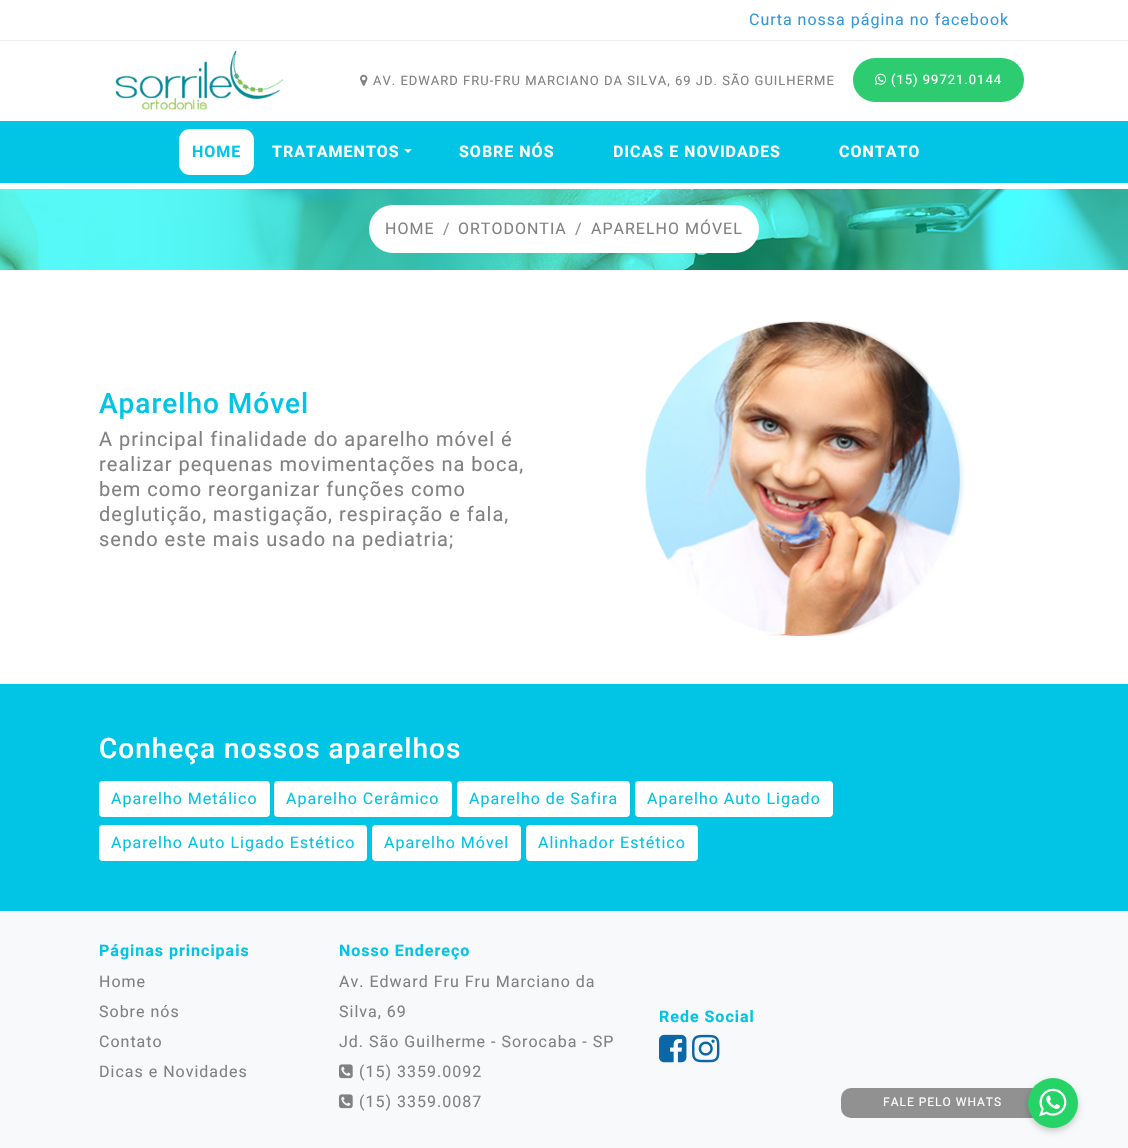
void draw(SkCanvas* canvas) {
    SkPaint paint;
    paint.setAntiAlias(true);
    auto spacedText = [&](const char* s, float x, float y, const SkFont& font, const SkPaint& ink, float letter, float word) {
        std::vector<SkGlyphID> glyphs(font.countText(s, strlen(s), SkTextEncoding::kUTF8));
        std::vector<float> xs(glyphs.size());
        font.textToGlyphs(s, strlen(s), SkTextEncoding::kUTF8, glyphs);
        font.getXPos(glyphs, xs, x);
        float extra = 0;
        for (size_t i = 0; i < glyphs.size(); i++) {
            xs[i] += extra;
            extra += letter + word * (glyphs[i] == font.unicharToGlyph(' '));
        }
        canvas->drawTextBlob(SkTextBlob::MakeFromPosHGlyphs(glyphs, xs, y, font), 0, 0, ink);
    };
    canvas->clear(0xFFFFFFFF);
    paint.setColor(0xFFEEEEEE);
    canvas->drawRect(SkRect::MakeXYWH(0, 40, 1128, 1), paint);
    SkFont font1(fontMgr->matchFamilyStyle("Roboto", SkFontStyle::Normal()), 16);
    font1.setSubpixel(true);
    paint.setColor(0xFF3498DB);
    spacedText("Curta nossa página no facebook", 749, 25, font1, paint, 1, 0);
    canvas->drawImageRect(SkImages::DeferredFromEncodedData(SkData::MakeFromFileName("img1.png")), SkRect::MakeXYWH(115, 51, 168, 59), SkSamplingOptions());
    canvas->drawImageRect(SkImages::DeferredFromEncodedData(SkData::MakeFromFileName("img2.png")), SkRect::MakeXYWH(360, 74, 8, 12), SkSamplingOptions());
    SkFont font2(fontMgr->matchFamilyStyle("Roboto", SkFontStyle::Normal()), 13);
    font2.setSubpixel(true);
    paint.setColor(0xFF818182);
    spacedText("AV. EDWARD FRU-FRU MARCIANO DA SILVA, 69 JD. SÃO GUILHERME", 373, 85, font2, paint, 1, 0);
    paint.setColor(0xFF2ECC71);
    canvas->drawRoundRect(SkRect::MakeXYWH(853, 58, 171, 44), 22, 22, paint);
    canvas->drawImageRect(SkImages::DeferredFromEncodedData(SkData::MakeFromFileName("img3.png")), SkRect::MakeXYWH(875, 73, 12, 12), SkSamplingOptions());
    paint.setColor(0xFFFFFFFF);
    spacedText("(15) 99721.0144", 891, 84, font2, paint, 1, 0);
    paint.setColor(0xFF02C4E4);
    canvas->drawRect(SkRect::MakeXYWH(0, 121, 1128, 62), paint);
    paint.setColor(0xFFFFFFFF);
    canvas->drawRoundRect(SkRect::MakeXYWH(179, 129, 75, 46), 11, 11, paint);
    SkFont font3(fontMgr->matchFamilyStyle("Roboto", SkFontStyle::Bold()), 16);
    font3.setSubpixel(true);
    paint.setColor(0xFF02C4E4);
    spacedText("HOME", 192, 157, font3, paint, 1, 0);
    paint.setColor(0xFFFFFFFF);
    spacedText("TRATAMENTOS", 272, 157, font3, paint, 1, 0);
    canvas->drawPath(SkPathBuilder().moveTo(404, 149).lineTo(412, 149).lineTo(408, 153).close().detach(), paint);
    spacedText("SOBRE NÓS", 459, 157, font3, paint, 1, 0);
    spacedText("DICAS E NOVIDADES", 613, 157, font3, paint, 1, 0);
    spacedText("CONTATO", 839, 157, font3, paint, 1, 0);
    canvas->drawImageRect(SkImages::DeferredFromEncodedData(SkData::MakeFromFileName("img4.png")), SkRect::MakeXYWH(0, 189, 1128, 81), SkSamplingOptions());
    canvas->drawRoundRect(SkRect::MakeXYWH(369, 205, 390, 48), 24, 24, paint);
    paint.setColor(0xFF818182);
    spacedText("HOME", 385, 234, font1, paint, 1, 0);
    paint.setColor(0xFF868E96);
    spacedText("/", 443, 234, font1, paint, 1, 0);
    paint.setColor(0xFF818182);
    spacedText("ORTODONTIA", 458, 234, font1, paint, 1, 0);
    paint.setColor(0xFF868E96);
    spacedText("/", 575, 234, font1, paint, 1, 0);
    paint.setColor(0xFF818182);
    spacedText("APARELHO MÓVEL", 591, 234, font1, paint, 1, 0);
    SkFont font4(fontMgr->matchFamilyStyle("Roboto", SkFontStyle(500, SkFontStyle::kNormal_Width, SkFontStyle::kUpright_Slant)), 28);
    font4.setSubpixel(true);
    paint.setColor(0xFF02C4E4);
    spacedText("Aparelho Móvel", 99, 413, font4, paint, 1, 0);
    SkFont font5(fontMgr->matchFamilyStyle("Roboto", SkFontStyle::Normal()), 20);
    font5.setSubpixel(true);
    paint.setColor(0xFF818182);
    spacedText("A principal finalidade do aparelho móvel é", 99, 446, font5, paint, 1, 0);
    spacedText("realizar pequenas movimentações na boca,", 99, 471, font5, paint, 1, 0);
    spacedText("bem como reorganizar funções como", 99, 496, font5, paint, 1, 0);
    spacedText("deglutição, mastigação, respiração e fala,", 99, 521, font5, paint, 1, 0);
    spacedText("sendo este mais usado na pediatria;", 99, 546, font5, paint, 1, 0);
    canvas->drawImageRect(SkImages::DeferredFromEncodedData(SkData::MakeFromFileName("img5.png")), SkRect::MakeXYWH(645, 321, 320, 315), SkSamplingOptions());
    paint.setColor(0xFF02C4E4);
    canvas->drawRect(SkRect::MakeXYWH(0, 684, 1128, 227), paint);
    paint.setColor(0xFFFFFFFF);
    spacedText("Conheça nossos aparelhos", 99, 758, font4, paint, 1, 0);
    canvas->drawRoundRect(SkRect::MakeXYWH(99, 781, 171, 36), 4, 4, paint);
    paint.setColor(0xFF02C4E4);
    spacedText("Aparelho Metálico", 111, 804, font1, paint, 1, 0);
    paint.setColor(0xFFFFFFFF);
    canvas->drawRoundRect(SkRect::MakeXYWH(274, 781, 178, 36), 4, 4, paint);
    paint.setColor(0xFF02C4E4);
    spacedText("Aparelho Cerâmico", 286, 804, font1, paint, 1, 0);
    paint.setColor(0xFFFFFFFF);
    canvas->drawRoundRect(SkRect::MakeXYWH(457, 781, 173, 36), 4, 4, paint);
    paint.setColor(0xFF02C4E4);
    spacedText("Aparelho de Safira", 469, 804, font1, paint, 1, 0);
    paint.setColor(0xFFFFFFFF);
    canvas->drawRoundRect(SkRect::MakeXYWH(635, 781, 198, 36), 4, 4, paint);
    paint.setColor(0xFF02C4E4);
    spacedText("Aparelho Auto Ligado", 647, 804, font1, paint, 1, 0);
    paint.setColor(0xFFFFFFFF);
    canvas->drawRoundRect(SkRect::MakeXYWH(99, 825, 268, 36), 4, 4, paint);
    paint.setColor(0xFF02C4E4);
    spacedText("Aparelho Auto Ligado Estético", 111, 848, font1, paint, 1, 0);
    paint.setColor(0xFFFFFFFF);
    canvas->drawRoundRect(SkRect::MakeXYWH(372, 825, 149, 36), 4, 4, paint);
    paint.setColor(0xFF02C4E4);
    spacedText("Aparelho Móvel", 384, 848, font1, paint, 1, 0);
    paint.setColor(0xFFFFFFFF);
    canvas->drawRoundRect(SkRect::MakeXYWH(526, 825, 172, 36), 4, 4, paint);
    paint.setColor(0xFF02C4E4);
    spacedText("Alinhador Estético", 538, 848, font1, paint, 1, 0);
    paint.setColor(0xFFF8F9FA);
    canvas->drawRect(SkRect::MakeXYWH(0, 911, 1128, 237), paint);
    paint.setColor(0xFF02C4E4);
    spacedText("Páginas principais", 99, 956, font3, paint, 1, 0);
    paint.setColor(0xFF818182);
    spacedText("Home", 99, 987, font1, paint, 1, 0);
    spacedText("Sobre nós", 99, 1017, font1, paint, 1, 0);
    spacedText("Contato", 99, 1047, font1, paint, 1, 0);
    spacedText("Dicas e Novidades", 99, 1077, font1, paint, 1, 0);
    paint.setColor(0xFF02C4E4);
    spacedText("Nosso Endereço", 339, 956, font3, paint, 1, 0);
    paint.setColor(0xFF818182);
    spacedText("Av. Edward Fru Fru Marciano da", 339, 987, font1, paint, 1, 0);
    spacedText("Silva, 69", 339, 1017, font1, paint, 1, 0);
    spacedText("Jd. São Guilherme - Sorocaba - SP", 339, 1047, font1, paint, 1, 0);
    canvas->drawImageRect(SkImages::DeferredFromEncodedData(SkData::MakeFromFileName("img6.png")), SkRect::MakeXYWH(339, 1064, 14, 15), SkSamplingOptions());
    spacedText("(15) 3359.0092", 359, 1077, font1, paint, 1, 0);
    canvas->drawImageRect(SkImages::DeferredFromEncodedData(SkData::MakeFromFileName("img6.png")), SkRect::MakeXYWH(339, 1094, 14, 15), SkSamplingOptions());
    spacedText("(15) 3359.0087", 359, 1107, font1, paint, 1, 0);
    paint.setColor(0xFF02C4E4);
    spacedText("Rede Social", 659, 1022, font3, paint, 1, 0);
    canvas->drawImageRect(SkImages::DeferredFromEncodedData(SkData::MakeFromFileName("img7.png")), SkRect::MakeXYWH(659, 1034, 28, 29), SkSamplingOptions());
    canvas->drawImageRect(SkImages::DeferredFromEncodedData(SkData::MakeFromFileName("img8.png")), SkRect::MakeXYWH(692, 1034, 28, 29), SkSamplingOptions());
    paint.setColor(0xFF919191);
    canvas->drawRoundRect(SkRect::MakeXYWH(841, 1088, 203, 30), 10, 10, paint);
    SkFont font6(fontMgr->matchFamilyStyle("Roboto", SkFontStyle::Normal()), 12);
    font6.setSubpixel(true);
    paint.setColor(0xFFFFFFFF);
    spacedText("FALE PELO WHATS", 883, 1106, font6, paint, 1, 0);
    paint.setColor(0x33000000);
    paint.setMaskFilter(SkMaskFilter::MakeBlur(kNormal_SkBlurStyle, 3));
    canvas->drawRoundRect(SkRect::MakeXYWH(1028, 1081, 50, 50), 25, 25, paint);
    paint.setMaskFilter(nullptr);
    paint.setColor(0xFF25D366);
    canvas->drawCircle(1053, 1103, 25, paint);
    canvas->drawImageRect(SkImages::DeferredFromEncodedData(SkData::MakeFromFileName("img9.png")), SkRect::MakeXYWH(1039, 1088, 28, 29), SkSamplingOptions());
}
